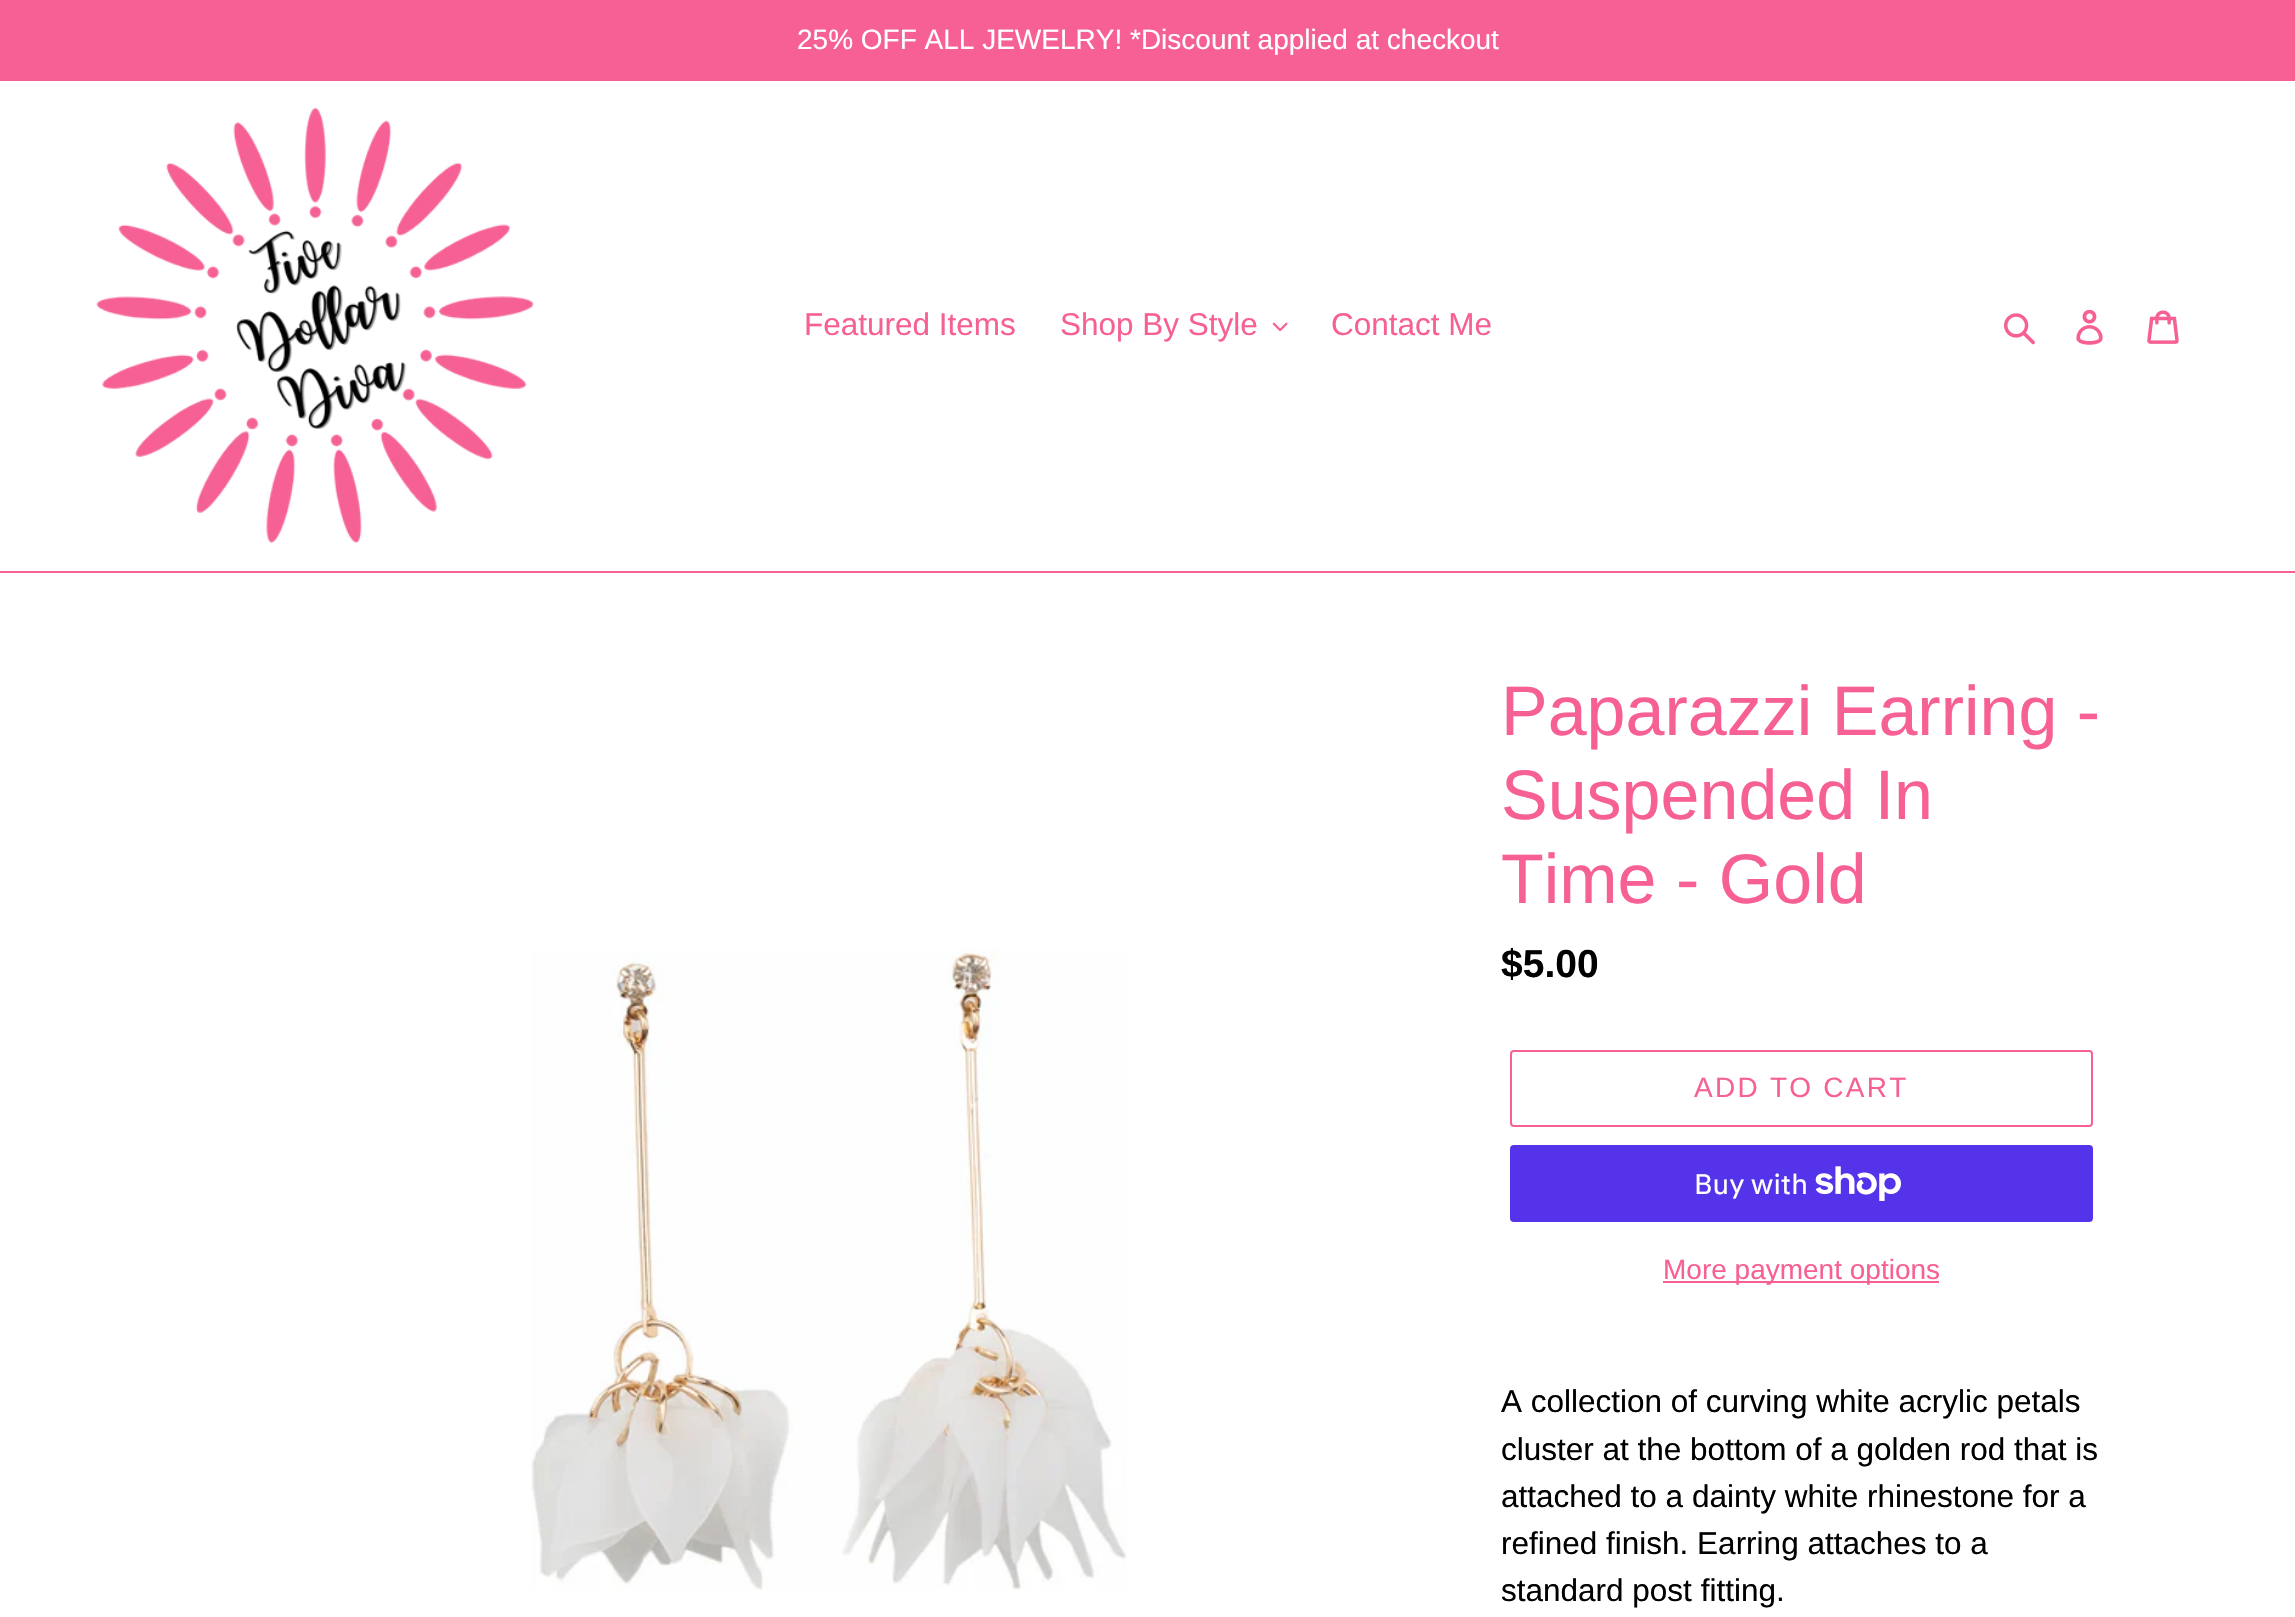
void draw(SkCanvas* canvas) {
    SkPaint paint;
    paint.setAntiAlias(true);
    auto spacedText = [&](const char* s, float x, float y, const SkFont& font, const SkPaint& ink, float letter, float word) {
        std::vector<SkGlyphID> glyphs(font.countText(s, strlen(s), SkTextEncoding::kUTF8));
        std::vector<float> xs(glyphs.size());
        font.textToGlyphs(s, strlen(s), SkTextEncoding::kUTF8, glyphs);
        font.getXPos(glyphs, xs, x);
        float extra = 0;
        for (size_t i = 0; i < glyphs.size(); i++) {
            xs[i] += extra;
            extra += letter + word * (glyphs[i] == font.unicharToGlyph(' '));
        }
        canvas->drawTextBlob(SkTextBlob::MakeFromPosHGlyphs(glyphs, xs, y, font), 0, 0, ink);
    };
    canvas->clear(0xFFFFFFFF);
    paint.setColor(0xFFF66095);
    canvas->drawRect(SkRect::MakeXYWH(0, 0, 2295, 81), paint);
    SkFont font1(fontMgr->matchFamilyStyle("Liberation Sans", SkFontStyle::Normal()), 28);
    font1.setSubpixel(true);
    paint.setColor(0xFFFFFFFF);
    canvas->drawString("25% OFF ALL JEWELRY! *Discount applied at checkout", 797, 49, font1, paint);
    paint.setColor(0xFFF66095);
    canvas->drawRect(SkRect::MakeXYWH(0, 571, 2295, 2), paint);
    canvas->drawImageRect(SkImages::DeferredFromEncodedData(SkData::MakeFromFileName("img1.png")), SkRect::MakeXYWH(96, 107, 438, 437), SkSamplingOptions());
    SkFont font2(fontMgr->matchFamilyStyle("Liberation Sans", SkFontStyle::Normal()), 31.5f);
    font2.setSubpixel(true);
    canvas->drawString("Featured Items", 804, 335, font2, paint);
    canvas->drawString("Shop By Style", 1060, 335, font2, paint);
    canvas->drawImageRect(SkImages::DeferredFromEncodedData(SkData::MakeFromFileName("img2.png")), SkRect::MakeXYWH(1272, 322, 16, 10), SkSamplingOptions());
    canvas->drawString("Contact Me", 1331, 335, font2, paint);
    canvas->drawImageRect(SkImages::DeferredFromEncodedData(SkData::MakeFromFileName("img3.png")), SkRect::MakeXYWH(2004, 313, 31, 32), SkSamplingOptions());
    canvas->drawImageRect(SkImages::DeferredFromEncodedData(SkData::MakeFromFileName("img4.png")), SkRect::MakeXYWH(2076, 310, 27, 35), SkSamplingOptions());
    canvas->drawImageRect(SkImages::DeferredFromEncodedData(SkData::MakeFromFileName("img5.png")), SkRect::MakeXYWH(2147, 310, 32, 34), SkSamplingOptions());
    canvas->drawImageRect(SkImages::DeferredFromEncodedData(SkData::MakeFromFileName("img6.png")), SkRect::MakeXYWH(531, 949, 596, 641), SkSamplingOptions());
    SkFont font3(fontMgr->matchFamilyStyle("Liberation Sans", SkFontStyle::Normal()), 70);
    font3.setSubpixel(true);
    canvas->drawString("Paparazzi Earring -", 1501, 735, font3, paint);
    canvas->drawString("Suspended In", 1501, 819, font3, paint);
    canvas->drawString("Time - Gold", 1501, 903, font3, paint);
    SkFont font4(fontMgr->matchFamilyStyle("Liberation Sans", SkFontStyle::Bold()), 39);
    font4.setSubpixel(true);
    paint.setColor(0xFF000000);
    canvas->drawString("$5.00", 1501, 977, font4, paint);
    paint.setStyle(SkPaint::kStroke_Style);
    paint.setStrokeWidth(2);
    paint.setColor(0xFFF66095);
    canvas->drawRoundRect(SkRect::MakeXYWH(1511, 1051, 581, 75), 3, 3, paint);
    paint.setStyle(SkPaint::kFill_Style);
    spacedText("ADD TO CART", 1694, 1097, font1, paint, 2.25f, 0);
    paint.setColor(0xFF5433EB);
    canvas->drawRoundRect(SkRect::MakeXYWH(1510, 1145, 583, 77), 4, 4, paint);
    SkFont font5(fontMgr->matchFamilyStyle("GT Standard", SkFontStyle::Normal()), 28);
    font5.setSubpixel(true);
    paint.setColor(0xFFFFFFFF);
    canvas->drawString("Buy with", 1694, 1194, font5, paint);
    canvas->drawImageRect(SkImages::DeferredFromEncodedData(SkData::MakeFromFileName("img7.png")), SkRect::MakeXYWH(1815, 1166, 86, 35), SkSamplingOptions());
    paint.setColor(0xFFF66095);
    canvas->drawRect(SkRect::MakeXYWH(1663, 1281, 276, 2), paint);
    canvas->drawString("More payment options", 1663, 1279, font1, paint);
    paint.setColor(0xFF000000);
    canvas->drawString("A collection of curving white acrylic petals", 1501, 1412, font2, paint);
    canvas->drawString("cluster at the bottom of a golden rod that is", 1501, 1460, font2, paint);
    canvas->drawString("attached to a dainty white rhinestone for a", 1501, 1507, font2, paint);
    canvas->drawString("refined finish. Earring attaches to a", 1501, 1554, font2, paint);
    canvas->drawString("standard post fitting.", 1501, 1601, font2, paint);
}
